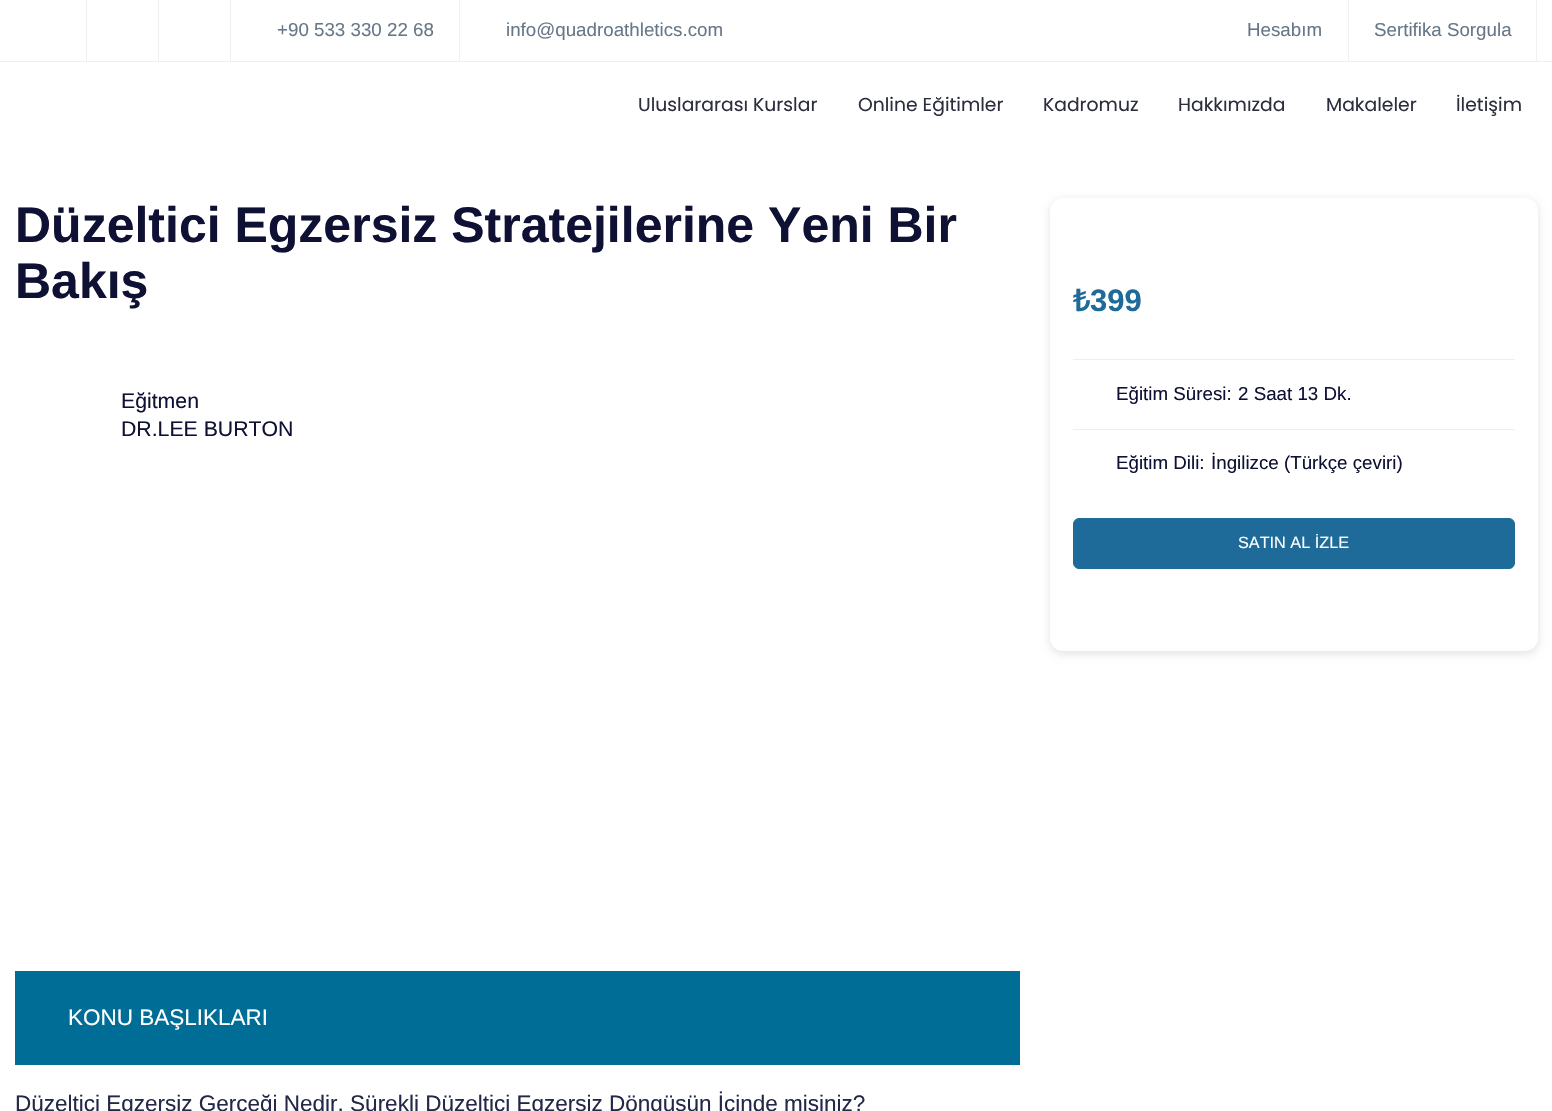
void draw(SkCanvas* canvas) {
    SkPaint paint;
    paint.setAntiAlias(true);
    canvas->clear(0xFFFFFFFF);
    paint.setColor(0xFFF0F0F0);
    canvas->drawRect(SkRect::MakeXYWH(0, 61, 1552, 1), paint);
    canvas->drawRect(SkRect::MakeXYWH(86, 0, 1, 61), paint);
    canvas->drawRect(SkRect::MakeXYWH(158, 0, 1, 61), paint);
    canvas->drawRect(SkRect::MakeXYWH(230, 0, 1, 61), paint);
    canvas->drawRect(SkRect::MakeXYWH(459, 0, 1, 61), paint);
    SkFont font1(fontMgr->matchFamilyStyle("Liberation Sans", SkFontStyle::Normal()), 18.75f);
    font1.setSubpixel(true);
    paint.setColor(0xFF677788);
    canvas->drawString("+90 533 330 22 68", 277, 36, font1, paint);
    canvas->drawString("info@quadroathletics.com", 506, 36, font1, paint);
    paint.setColor(0xFFF0F0F0);
    canvas->drawRect(SkRect::MakeXYWH(1536, 0, 1, 61), paint);
    canvas->drawRect(SkRect::MakeXYWH(1348, 0, 1, 61), paint);
    paint.setColor(0xFF677788);
    canvas->drawString("Hesabım", 1247, 36, font1, paint);
    canvas->drawString("Sertifika Sorgula", 1374, 36, font1, paint);
    SkFont font2(fontMgr->matchFamilyStyle("Poppins", SkFontStyle::Normal()), 18.75f);
    font2.setSubpixel(true);
    paint.setColor(0xFF2C2E3D);
    canvas->drawString("Uluslararası Kurslar", 638, 111, font2, paint);
    canvas->drawString("Online Eğitimler", 858, 111, font2, paint);
    canvas->drawString("Kadromuz", 1043, 111, font2, paint);
    canvas->drawString("Hakkımızda", 1178, 111, font2, paint);
    canvas->drawString("Makaleler", 1326, 111, font2, paint);
    canvas->drawString("İletişim", 1456, 111, font2, paint);
    SkFont font3(fontMgr->matchFamilyStyle("Liberation Sans", SkFontStyle::Bold()), 50);
    font3.setSubpixel(true);
    paint.setColor(0xFF0E1133);
    canvas->drawString("Düzeltici Egzersiz Stratejilerine Yeni Bir", 15, 242, font3, paint);
    canvas->drawString("Bakış", 15, 298, font3, paint);
    SkFont font4(fontMgr->matchFamilyStyle("Liberation Sans", SkFontStyle::Normal()), 21.25f);
    font4.setSubpixel(true);
    canvas->drawString("Eğitmen", 121, 408, font4, paint);
    canvas->drawString("DR.LEE BURTON", 121, 436, font4, paint);
    paint.setColor(0xFF006D97);
    canvas->drawRect(SkRect::MakeXYWH(15, 971, 1005, 94), paint);
    SkFont font5(fontMgr->matchFamilyStyle("Liberation Sans", SkFontStyle::Normal()), 22.5f);
    font5.setSubpixel(true);
    paint.setColor(0xFFFFFFFF);
    canvas->drawString("KONU BAŞLIKLARI", 68, 1025, font5, paint);
    paint.setColor(0xFF232748);
    canvas->drawString("Düzeltici Egzersiz Gerçeği Nedir. Sürekli Düzeltici Egzersiz Döngüsün İçinde misiniz?", 15, 1111, font5, paint);
    paint.setColor(0x1C000000);
    paint.setMaskFilter(SkMaskFilter::MakeBlur(kNormal_SkBlurStyle, 4.5f));
    canvas->drawRoundRect(SkRect::MakeXYWH(1050, 200, 488, 454), 13, 13, paint);
    paint.setMaskFilter(nullptr);
    paint.setColor(0xFFFFFFFF);
    canvas->drawRoundRect(SkRect::MakeXYWH(1050, 198, 488, 453), 13, 13, paint);
    SkFont font6(fontMgr->matchFamilyStyle("Noto Sans", SkFontStyle(600, SkFontStyle::kNormal_Width, SkFontStyle::kUpright_Slant)), 31);
    font6.setSubpixel(true);
    paint.setColor(0xFF1E6B99);
    canvas->drawString("₺", 1073, 311, font6, paint);
    SkFont font7(fontMgr->matchFamilyStyle("Liberation Sans", SkFontStyle::Bold()), 31);
    font7.setSubpixel(true);
    canvas->drawString("399", 1090, 311, font7, paint);
    paint.setColor(0xFFEFEFEF);
    canvas->drawRect(SkRect::MakeXYWH(1073, 359, 442, 1), paint);
    paint.setColor(0xFF0E1133);
    canvas->drawString("Eğitim Süresi:", 1116, 400, font1, paint);
    canvas->drawString("2 Saat 13 Dk.", 1238, 400, font1, paint);
    paint.setColor(0xFFEFEFEF);
    canvas->drawRect(SkRect::MakeXYWH(1073, 429, 442, 1), paint);
    paint.setColor(0xFF0E1133);
    canvas->drawString("Eğitim Dili:", 1116, 469, font1, paint);
    canvas->drawString("İngilizce (Türkçe çeviri)", 1211, 469, font1, paint);
    paint.setColor(0xFF1E6B99);
    canvas->drawRoundRect(SkRect::MakeXYWH(1073.5f, 518.5f, 441, 50), 5.5f, 5.5f, paint);
    paint.setStyle(SkPaint::kStroke_Style);
    paint.setStrokeWidth(1);
    canvas->drawRoundRect(SkRect::MakeXYWH(1073.5f, 518.5f, 441, 50), 5.5f, 5.5f, paint);
    SkFont font8(fontMgr->matchFamilyStyle("Liberation Sans", SkFontStyle::Normal()), 16.25f);
    font8.setSubpixel(true);
    paint.setStyle(SkPaint::kFill_Style);
    paint.setColor(0xFFFFFFFF);
    canvas->drawString("SATIN AL İZLE", 1238, 548, font8, paint);
}
